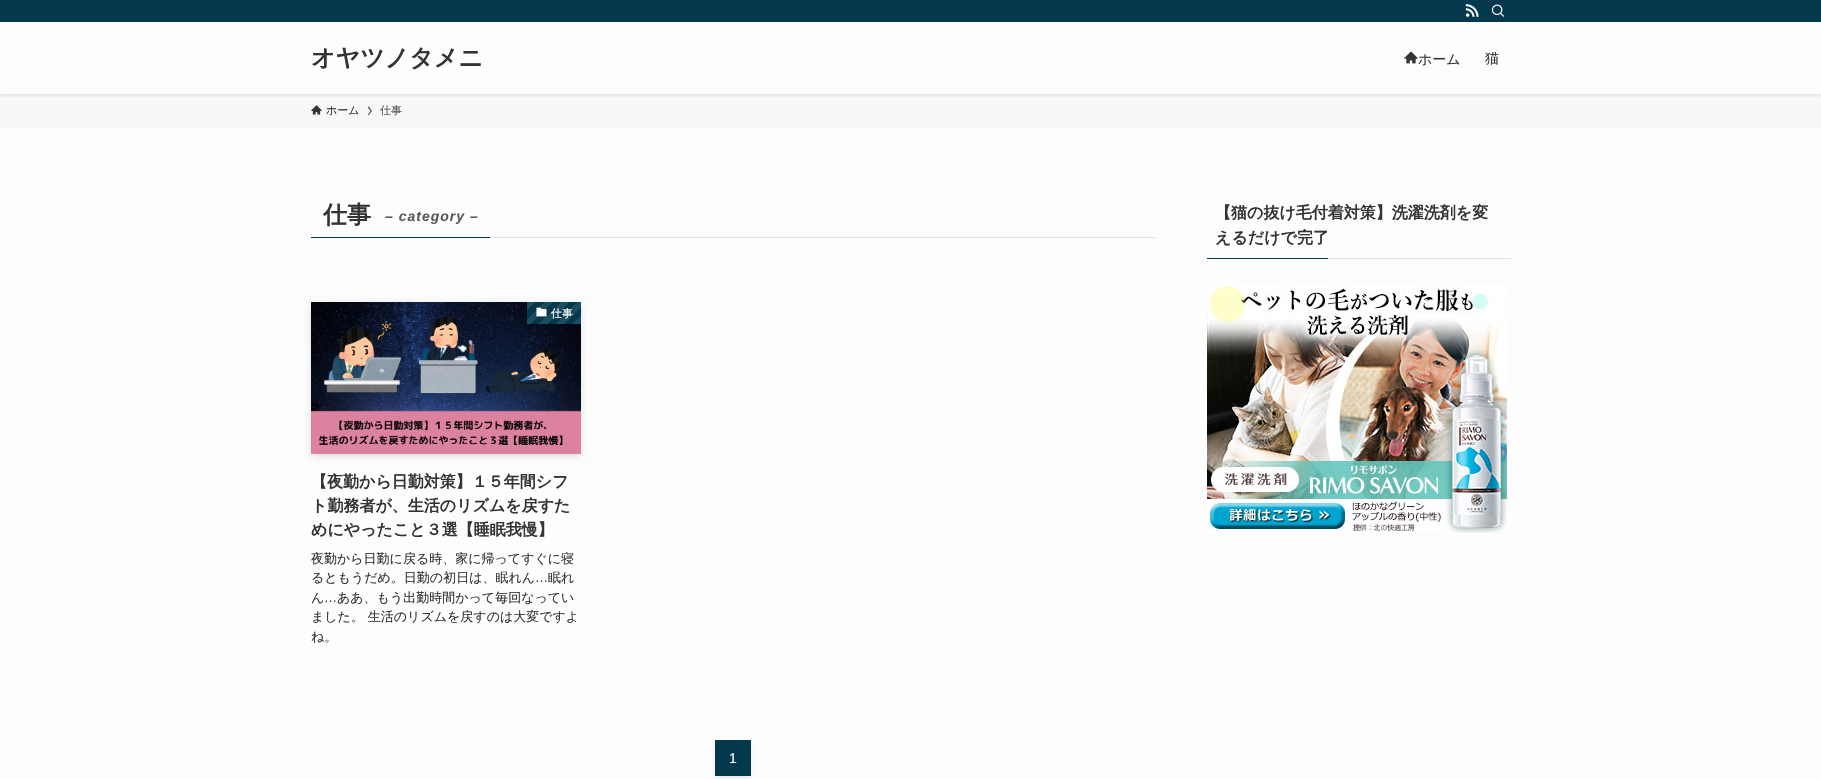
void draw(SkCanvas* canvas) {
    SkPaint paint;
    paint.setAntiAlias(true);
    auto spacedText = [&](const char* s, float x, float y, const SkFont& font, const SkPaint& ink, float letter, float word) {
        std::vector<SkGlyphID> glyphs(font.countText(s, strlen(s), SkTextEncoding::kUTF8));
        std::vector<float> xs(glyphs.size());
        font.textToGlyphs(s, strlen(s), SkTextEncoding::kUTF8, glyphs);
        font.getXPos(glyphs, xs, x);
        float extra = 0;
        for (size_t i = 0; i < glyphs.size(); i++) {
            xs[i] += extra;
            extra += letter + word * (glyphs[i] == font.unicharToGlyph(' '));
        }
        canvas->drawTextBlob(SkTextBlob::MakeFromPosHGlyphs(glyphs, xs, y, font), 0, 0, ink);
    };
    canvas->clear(0xFFFDFDFD);
    paint.setColor(0xFFF7F7F7);
    canvas->drawRect(SkRect::MakeXYWH(0, 94, 1821, 34), paint);
    canvas->save();
    canvas->clipRect(SkRect::MakeXYWH(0, 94, 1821, 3));
    paint.setColor(0x1F000000);
    paint.setMaskFilter(SkMaskFilter::MakeBlur(kNormal_SkBlurStyle, 2));
    canvas->drawRect(SkRect::MakeXYWH(0, 1, 1821, 94), paint);
    paint.setMaskFilter(nullptr);
    canvas->restore();
    paint.setColor(0xFF04384C);
    canvas->drawRect(SkRect::MakeXYWH(0, 0, 1821, 22), paint);
    canvas->drawImageRect(SkImages::DeferredFromEncodedData(SkData::MakeFromFileName("img1.png")), SkRect::MakeXYWH(1465, 4, 14, 13), SkSamplingOptions());
    canvas->drawImageRect(SkImages::DeferredFromEncodedData(SkData::MakeFromFileName("img2.png")), SkRect::MakeXYWH(1491, 4, 14, 13), SkSamplingOptions());
    SkFont font1(fontMgr->matchFamilyStyle("WenQuanYi Zen Hei", SkFontStyle::Bold()), 24);
    font1.setSubpixel(true);
    paint.setColor(0xFF333333);
    canvas->drawString("オヤツノタメニ", 311, 66, font1, paint);
    canvas->drawImageRect(SkImages::DeferredFromEncodedData(SkData::MakeFromFileName("img3.png")), SkRect::MakeXYWH(1404, 51, 14, 13), SkSamplingOptions());
    SkFont font2(fontMgr->matchFamilyStyle("WenQuanYi Zen Hei", SkFontStyle(500, SkFontStyle::kNormal_Width, SkFontStyle::kUpright_Slant)), 14);
    font2.setSubpixel(true);
    canvas->drawString("ホーム", 1418, 64, font2, paint);
    canvas->drawString("猫", 1485, 63, font2, paint);
    canvas->drawImageRect(SkImages::DeferredFromEncodedData(SkData::MakeFromFileName("img4.png")), SkRect::MakeXYWH(311, 105, 11, 10), SkSamplingOptions());
    SkFont font3(fontMgr->matchFamilyStyle("WenQuanYi Zen Hei", SkFontStyle(500, SkFontStyle::kNormal_Width, SkFontStyle::kUpright_Slant)), 11);
    font3.setSubpixel(true);
    canvas->drawString("ホーム", 326, 114, font3, paint);
    paint.setColor(0xFF5A5A5A);
    canvas->drawPath(SkPathBuilder().moveTo(369, 106.5f).lineTo(367.5f, 107).lineTo(370.5f, 111).lineTo(367.5f, 115).lineTo(369, 115).lineTo(372, 111).close().detach(), paint);
    canvas->drawString("仕事", 380, 114, font3, paint);
    paint.setColor(0xFFE2E2E2);
    canvas->drawRect(SkRect::MakeXYWH(490, 237, 665, 1), paint);
    paint.setColor(0xFF04384C);
    canvas->drawRect(SkRect::MakeXYWH(311, 237, 179, 1), paint);
    paint.setColor(0xFF333333);
    canvas->drawString("仕事", 323, 223, font1, paint);
    SkFont font4(fontMgr->matchFamilyStyle("Liberation Sans", SkFontStyle::BoldItalic()), 14);
    font4.setSubpixel(true);
    paint.setColor(0xFF5A5A5A);
    spacedText("– category –", 385, 221, font4, paint, 1, 0);
    paint.setColor(0x1A000000);
    paint.setMaskFilter(SkMaskFilter::MakeBlur(kNormal_SkBlurStyle, 2));
    canvas->drawRect(SkRect::MakeXYWH(315, 310, 262, 144), paint);
    paint.setMaskFilter(nullptr);
    paint.setMaskFilter(SkMaskFilter::MakeBlur(kNormal_SkBlurStyle, 4));
    canvas->drawRect(SkRect::MakeXYWH(311, 304, 270, 152), paint);
    paint.setMaskFilter(nullptr);
    canvas->drawImageRect(SkImages::DeferredFromEncodedData(SkData::MakeFromFileName("img5.png")), SkRect::MakeXYWH(311, 302, 270, 152), SkSamplingOptions());
    {
        const SkColor colors[] = {0xFF1D4C5E, 0xFF1D4C5E, 0xFF04384C, 0xFF04384C, 0xFF1D4C5E, 0xFF1D4C5E, 0xFF04384C, 0xFF04384C, 0xFF1D4C5E, 0xFF1D4C5E, 0xFF04384C, 0xFF04384C, 0xFF1D4C5E, 0xFF1D4C5E, 0xFF04384C, 0xFF04384C, 0xFF1D4C5E, 0xFF1D4C5E, 0xFF04384C, 0xFF04384C};
        const float stops[] = {0, 0.1f, 0.1f, 0.2f, 0.2f, 0.3f, 0.3f, 0.4f, 0.4f, 0.5f, 0.5f, 0.6f, 0.6f, 0.7f, 0.7f, 0.8f, 0.8f, 0.9f, 0.9f, 1};
        const SkPoint ends[] = {{573, 332}, {531, 290}};
        paint.setShader(SkGradientShader::MakeLinear(ends, colors, stops, 20, SkTileMode::kClamp));
        paint.setAlpha(255);
    }
    canvas->drawRect(SkRect::MakeXYWH(527, 302, 54, 22), paint);
    canvas->drawImageRect(SkImages::DeferredFromEncodedData(SkData::MakeFromFileName("img6.png")), SkRect::MakeXYWH(536, 307, 11, 10), SkSamplingOptions());
    paint.setShader(nullptr);
    paint.setColor(0xFFFFFFFF);
    canvas->drawString("仕事", 551, 317, font3, paint);
    SkFont font5(fontMgr->matchFamilyStyle("WenQuanYi Zen Hei", SkFontStyle::Bold()), 16);
    font5.setSubpixel(true);
    paint.setColor(0xFF333333);
    canvas->drawString("【夜勤から日勤対策】１５年間シフ", 311, 487, font5, paint);
    canvas->drawString("ト勤務者が、生活のリズムを戻すた", 311, 511, font5, paint);
    canvas->drawString("めにやったこと３選【睡眠我慢】", 311, 535, font5, paint);
    SkFont font6(fontMgr->matchFamilyStyle("WenQuanYi Zen Hei", SkFontStyle(500, SkFontStyle::kNormal_Width, SkFontStyle::kUpright_Slant)), 13);
    font6.setSubpixel(true);
    canvas->drawString("夜勤から日勤に戻る時、家に帰ってすぐに寝", 311, 563, font6, paint);
    canvas->drawString("るともうだめ。日勤の初日は、眠れん", 311, 582, font6, paint);
    SkFont font7(fontMgr->matchFamilyStyle("Liberation Sans", SkFontStyle::Normal()), 13);
    font7.setSubpixel(true);
    canvas->drawString("…", 535, 582, font7, paint);
    canvas->drawString("眠れ", 548, 582, font6, paint);
    canvas->drawString("ん", 311, 602, font6, paint);
    canvas->drawString("…", 324, 602, font7, paint);
    canvas->drawString("ああ、もう出勤時間かって毎回なってい", 337, 602, font6, paint);
    canvas->drawString("ました。 生活のリズムを戻すのは大変ですよ", 311, 621, font6, paint);
    canvas->drawString("ね。", 311, 641, font6, paint);
    paint.setColor(0x1A000000);
    paint.setMaskFilter(SkMaskFilter::MakeBlur(kNormal_SkBlurStyle, 2));
    canvas->drawRect(SkRect::MakeXYWH(719, 748, 28, 28), paint);
    paint.setMaskFilter(nullptr);
    paint.setColor(0x0D000000);
    paint.setMaskFilter(SkMaskFilter::MakeBlur(kNormal_SkBlurStyle, 2));
    canvas->drawRect(SkRect::MakeXYWH(715, 742, 36, 36), paint);
    paint.setMaskFilter(nullptr);
    paint.setColor(0xFF04384C);
    canvas->drawRect(SkRect::MakeXYWH(715, 740, 36, 36), paint);
    SkFont font8(fontMgr->matchFamilyStyle("Liberation Sans", SkFontStyle::Normal()), 14);
    font8.setSubpixel(true);
    paint.setColor(0xFFFFFFFF);
    canvas->drawString("1", 729, 763, font8, paint);
    paint.setColor(0xFF333333);
    canvas->drawString("【猫の抜け毛付着対策】洗濯洗剤を変", 1215, 218, font5, paint);
    canvas->drawString("えるだけで完了", 1215, 243, font5, paint);
    paint.setColor(0xFF04384C);
    canvas->drawRect(SkRect::MakeXYWH(1207, 258, 121, 1), paint);
    paint.setColor(0xFFE2E2E2);
    canvas->drawRect(SkRect::MakeXYWH(1328, 258, 183, 1), paint);
    canvas->drawImageRect(SkImages::DeferredFromEncodedData(SkData::MakeFromFileName("img7.png")), SkRect::MakeXYWH(1207, 283, 300, 250), SkSamplingOptions());
}
